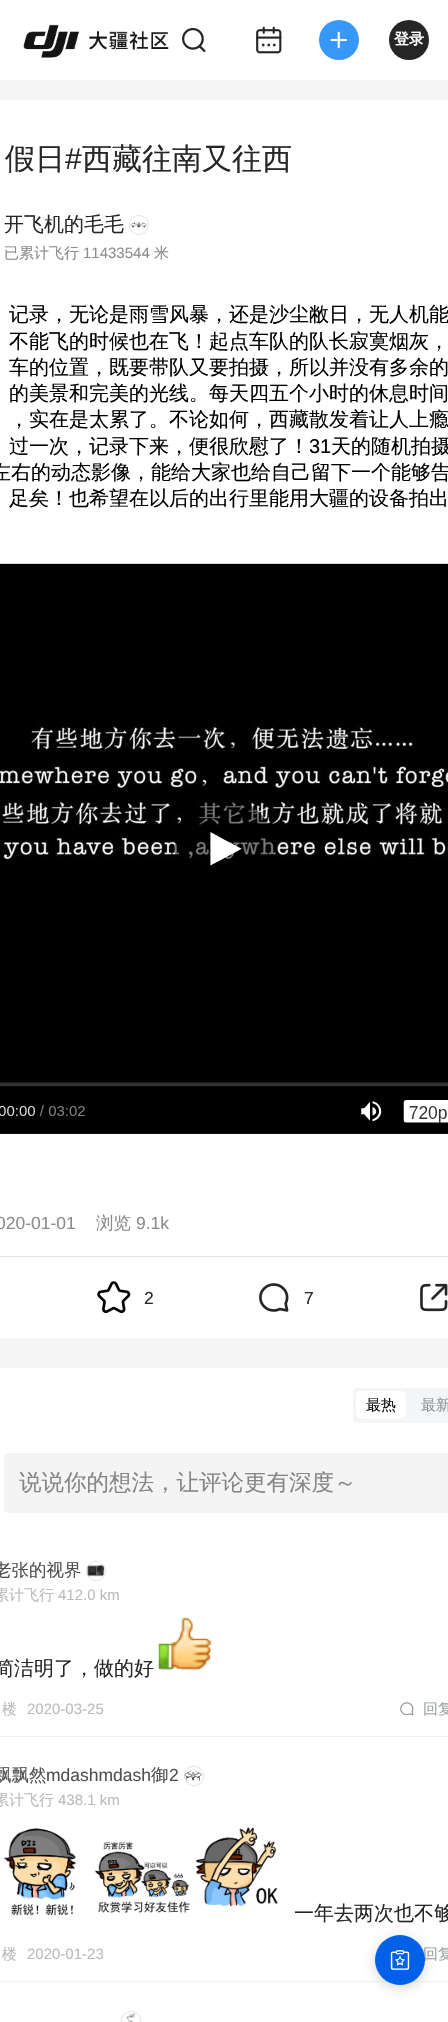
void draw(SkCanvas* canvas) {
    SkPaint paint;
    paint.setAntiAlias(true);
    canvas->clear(0xFFF5F5F5);
    paint.setColor(0xFFFFFFFF);
    canvas->drawRect(SkRect::MakeXYWH(0, 0, 448, 80), paint);
    canvas->drawImageRect(SkImages::DeferredFromEncodedData(SkData::MakeFromFileName("img1.png")), SkRect::MakeXYWH(23, 24, 146, 34), SkSamplingOptions());
    canvas->drawImageRect(SkImages::DeferredFromEncodedData(SkData::MakeFromFileName("img2.png")), SkRect::MakeXYWH(182, 27, 24, 26), SkSamplingOptions());
    canvas->drawImageRect(SkImages::DeferredFromEncodedData(SkData::MakeFromFileName("img3.png")), SkRect::MakeXYWH(256, 26, 26, 28), SkSamplingOptions());
    paint.setColor(0xFF3798FA);
    canvas->drawCircle(339, 40, 20, paint);
    canvas->drawImageRect(SkImages::DeferredFromEncodedData(SkData::MakeFromFileName("img4.png")), SkRect::MakeXYWH(330, 31, 17, 18), SkSamplingOptions());
    paint.setColor(0xFF262626);
    canvas->drawCircle(409, 40, 20, paint);
    SkFont font1(fontMgr->matchFamilyStyle("WenQuanYi Zen Hei", SkFontStyle::Bold()), 15);
    font1.setSubpixel(true);
    paint.setColor(0xFFFFFFFF);
    canvas->drawString("登录", 394, 44, font1, paint);
    canvas->drawRect(SkRect::MakeXYWH(0, 100, 448, 1238), paint);
    SkFont font2(fontMgr->matchFamilyStyle("WenQuanYi Zen Hei", SkFontStyle(500, SkFontStyle::kNormal_Width, SkFontStyle::kUpright_Slant)), 30);
    font2.setSubpixel(true);
    paint.setColor(0xFF262626);
    canvas->drawString("假日", 5, 169, font2, paint);
    SkFont font3(fontMgr->matchFamilyStyle("Liberation Sans", SkFontStyle::Normal()), 30);
    font3.setSubpixel(true);
    canvas->drawString("#", 65, 169, font3, paint);
    canvas->drawString("西藏往南又往西", 82, 169, font2, paint);
    SkFont font4(fontMgr->matchFamilyStyle("WenQuanYi Zen Hei", SkFontStyle(500, SkFontStyle::kNormal_Width, SkFontStyle::kUpright_Slant)), 20);
    font4.setSubpixel(true);
    canvas->drawString("开飞机的毛毛", 4, 231, font4, paint);
    paint.setStyle(SkPaint::kStroke_Style);
    paint.setStrokeWidth(1);
    paint.setColor(0xFFE4E4E4);
    canvas->drawCircle(139, 225, 9.5f, paint);
    canvas->drawImageRect(SkImages::DeferredFromEncodedData(SkData::MakeFromFileName("img5.png")), SkRect::MakeXYWH(130, 221, 17, 7), SkSamplingOptions());
    SkFont font5(fontMgr->matchFamilyStyle("WenQuanYi Zen Hei", SkFontStyle(500, SkFontStyle::kNormal_Width, SkFontStyle::kUpright_Slant)), 15);
    font5.setSubpixel(true);
    paint.setStyle(SkPaint::kFill_Style);
    paint.setColor(0xFF8C8C8C);
    canvas->drawString("已累计飞行", 4, 258, font5, paint);
    SkFont font6(fontMgr->matchFamilyStyle("Liberation Sans", SkFontStyle::Normal()), 15);
    font6.setSubpixel(true);
    canvas->drawString("11433544", 83, 258, font6, paint);
    canvas->drawString("米", 154, 258, font5, paint);
    paint.setColor(0xFF000000);
    canvas->drawString("记录，无论是雨雪风暴，还是沙尘敝日，无人机能", 9, 321, font4, paint);
    canvas->drawString("不能飞的时候也在飞！起点车队的队长寂寞烟灰，", 9, 348, font4, paint);
    canvas->drawString("车的位置，既要带队又要拍摄，所以并没有多余的", 9, 374, font4, paint);
    canvas->drawString("的美景和完美的光线。每天四五个小时的休息时间", 9, 400, font4, paint);
    canvas->drawString("，实在是太累了。不论如何，西藏散发着让人上瘾", 9, 426, font4, paint);
    canvas->drawString("过一次，记录下来，便很欣慰了！", 9, 453, font4, paint);
    SkFont font7(fontMgr->matchFamilyStyle("Liberation Sans", SkFontStyle::Normal()), 20);
    font7.setSubpixel(true);
    canvas->drawString("31", 309, 453, font7, paint);
    canvas->drawString("天的随机拍摄", 331, 453, font4, paint);
    canvas->drawString("左右的动态影像，能给大家也给自己留下一个能够告", -9, 479, font4, paint);
    canvas->drawString("足矣！也希望在以后的出行里能用大疆的设备拍出", 9, 505, font4, paint);
    canvas->drawImageRect(SkImages::DeferredFromEncodedData(SkData::MakeFromFileName("img6.png")), SkRect::MakeXYWH(0, 563, 448, 571), SkSamplingOptions());
    SkFont font8(fontMgr->matchFamilyStyle("Liberation Sans", SkFontStyle::Normal()), 17.5f);
    font8.setSubpixel(true);
    paint.setColor(0xFF8C8C8C);
    canvas->drawString("020-01-01", -4, 1229, font8, paint);
    SkFont font9(fontMgr->matchFamilyStyle("WenQuanYi Zen Hei", SkFontStyle(500, SkFontStyle::kNormal_Width, SkFontStyle::kUpright_Slant)), 17.5f);
    font9.setSubpixel(true);
    canvas->drawString("浏览", 96, 1229, font9, paint);
    canvas->drawString("9.1k", 136, 1229, font8, paint);
    paint.setColor(0xFFE4E4E4);
    canvas->drawRect(SkRect::MakeXYWH(0, 1256, 448, 1), paint);
    canvas->drawImageRect(SkImages::DeferredFromEncodedData(SkData::MakeFromFileName("img7.png")), SkRect::MakeXYWH(97, 1281, 34, 33), SkSamplingOptions());
    paint.setColor(0xFF262626);
    canvas->drawString("2", 144, 1304, font8, paint);
    canvas->drawImageRect(SkImages::DeferredFromEncodedData(SkData::MakeFromFileName("img8.png")), SkRect::MakeXYWH(259, 1283, 30, 29), SkSamplingOptions());
    canvas->drawString("7", 304, 1304, font8, paint);
    canvas->drawImageRect(SkImages::DeferredFromEncodedData(SkData::MakeFromFileName("img9.png")), SkRect::MakeXYWH(420, 1283, 28, 29), SkSamplingOptions());
    paint.setColor(0xFFFFFFFF);
    canvas->drawRect(SkRect::MakeXYWH(0, 1368, 448, 654), paint);
    paint.setColor(0xFFF4F5F7);
    canvas->drawPath(SkPathBuilder().moveTo(358, 1388).lineTo(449, 1388).lineTo(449, 1423).lineTo(358, 1423).cubicTo(355, 1423, 353, 1421, 353, 1418).lineTo(353, 1393).cubicTo(353, 1390, 355, 1388, 358, 1388).close().detach(), paint);
    paint.setColor(0xFFFFFFFF);
    canvas->drawRoundRect(SkRect::MakeXYWH(356, 1391, 50, 28), 5, 5, paint);
    paint.setColor(0xFF0C0C0C);
    canvas->drawString("最热", 366, 1410, font5, paint);
    paint.setColor(0xFF919294);
    canvas->drawString("最新", 421, 1410, font5, paint);
    paint.setColor(0xFFF4F4F4);
    canvas->drawPath(SkPathBuilder().moveTo(9, 1453).lineTo(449, 1453).lineTo(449, 1513).lineTo(9, 1513).cubicTo(6, 1513, 4, 1511, 4, 1508).lineTo(4, 1458).cubicTo(4, 1455, 6, 1453, 9, 1453).close().detach(), paint);
    SkFont font10(fontMgr->matchFamilyStyle("WenQuanYi Zen Hei", SkFontStyle(500, SkFontStyle::kNormal_Width, SkFontStyle::kUpright_Slant)), 22.5f);
    font10.setSubpixel(true);
    paint.setColor(0xFF868686);
    canvas->drawString("说说你的想法，让评论更有深度～", 19, 1490, font10, paint);
    paint.setColor(0xFF4F4F52);
    canvas->drawString("老张的视界", -6, 1576, font9, paint);
    paint.setStyle(SkPaint::kStroke_Style);
    paint.setStrokeWidth(0.6f);
    paint.setColor(0xFFCECECE);
    canvas->drawCircle(96, 1571, 9.7f, paint);
    canvas->drawImageRect(SkImages::DeferredFromEncodedData(SkData::MakeFromFileName("img10.png")), SkRect::MakeXYWH(87, 1564, 18, 13), SkSamplingOptions());
    paint.setStyle(SkPaint::kFill_Style);
    paint.setColor(0xFFBABBBD);
    canvas->drawString("累计飞行", -6, 1600, font5, paint);
    canvas->drawString("412.0 km", 58, 1600, font6, paint);
    paint.setColor(0xFF262626);
    canvas->drawString("简洁明了，做的好", -6, 1675, font4, paint);
    canvas->drawImageRect(SkImages::DeferredFromEncodedData(SkData::MakeFromFileName("img11.png")), SkRect::MakeXYWH(158, 1617, 54, 54), SkSamplingOptions());
    paint.setColor(0xFFBABBBD);
    canvas->drawString("楼", 2, 1714, font5, paint);
    canvas->drawString("2020-03-25", 27, 1714, font6, paint);
    canvas->drawImageRect(SkImages::DeferredFromEncodedData(SkData::MakeFromFileName("img12.png")), SkRect::MakeXYWH(400, 1702, 14, 14), SkSamplingOptions());
    paint.setColor(0xFFA0A5A5);
    canvas->drawString("回复", 423, 1714, font5, paint);
    paint.setColor(0xFFF0F2F5);
    canvas->drawRect(SkRect::MakeXYWH(0, 1736, 448, 1), paint);
    paint.setColor(0xFF4F4F52);
    canvas->drawString("飘飘然", -6, 1781, font9, paint);
    canvas->drawString("mdashmdash", 46, 1781, font8, paint);
    canvas->drawString("御", 151, 1781, font9, paint);
    canvas->drawString("2", 169, 1781, font8, paint);
    paint.setStyle(SkPaint::kStroke_Style);
    paint.setColor(0xFFCECECE);
    canvas->drawCircle(194, 1776, 9.7f, paint);
    canvas->drawImageRect(SkImages::DeferredFromEncodedData(SkData::MakeFromFileName("img13.png")), SkRect::MakeXYWH(184, 1770, 18, 11), SkSamplingOptions());
    paint.setStyle(SkPaint::kFill_Style);
    paint.setColor(0xFFBABBBD);
    canvas->drawString("累计飞行", -6, 1805, font5, paint);
    canvas->drawString("438.1 km", 58, 1805, font6, paint);
    canvas->drawImageRect(SkImages::DeferredFromEncodedData(SkData::MakeFromFileName("img14.png")), SkRect::MakeXYWH(3, 1828, 74, 88), SkSamplingOptions());
    canvas->drawImageRect(SkImages::DeferredFromEncodedData(SkData::MakeFromFileName("img15.png")), SkRect::MakeXYWH(95, 1841, 95, 72), SkSamplingOptions());
    canvas->drawImageRect(SkImages::DeferredFromEncodedData(SkData::MakeFromFileName("img16.png")), SkRect::MakeXYWH(195, 1827, 83, 80), SkSamplingOptions());
    paint.setColor(0xFF262626);
    canvas->drawString("一年去两次也不够", 294, 1920, font4, paint);
    paint.setColor(0xFFBABBBD);
    canvas->drawString("楼", 2, 1959, font5, paint);
    canvas->drawString("2020-01-23", 27, 1959, font6, paint);
    paint.setColor(0xFFA0A5A5);
    canvas->drawString("回复", 423, 1959, font5, paint);
    paint.setColor(0xFFF0F2F5);
    canvas->drawRect(SkRect::MakeXYWH(0, 1981, 448, 1), paint);
    paint.setStyle(SkPaint::kStroke_Style);
    paint.setColor(0xFFCECECE);
    canvas->drawCircle(131, 2021, 9.7f, paint);
    canvas->drawImageRect(SkImages::DeferredFromEncodedData(SkData::MakeFromFileName("img17.png")), SkRect::MakeXYWH(126, 2013, 10, 9), SkSamplingOptions());
    paint.setStyle(SkPaint::kFill_Style);
    paint.setColor(0x29000000);
    paint.setMaskFilter(SkMaskFilter::MakeBlur(kNormal_SkBlurStyle, 6));
    canvas->drawRoundRect(SkRect::MakeXYWH(375, 1938, 50, 50), 25, 25, paint);
    paint.setMaskFilter(nullptr);
    paint.setColor(0xFF0060E7);
    canvas->drawCircle(400, 1960, 25, paint);
    canvas->drawImageRect(SkImages::DeferredFromEncodedData(SkData::MakeFromFileName("img18.png")), SkRect::MakeXYWH(390, 1950, 20, 20), SkSamplingOptions());
}
